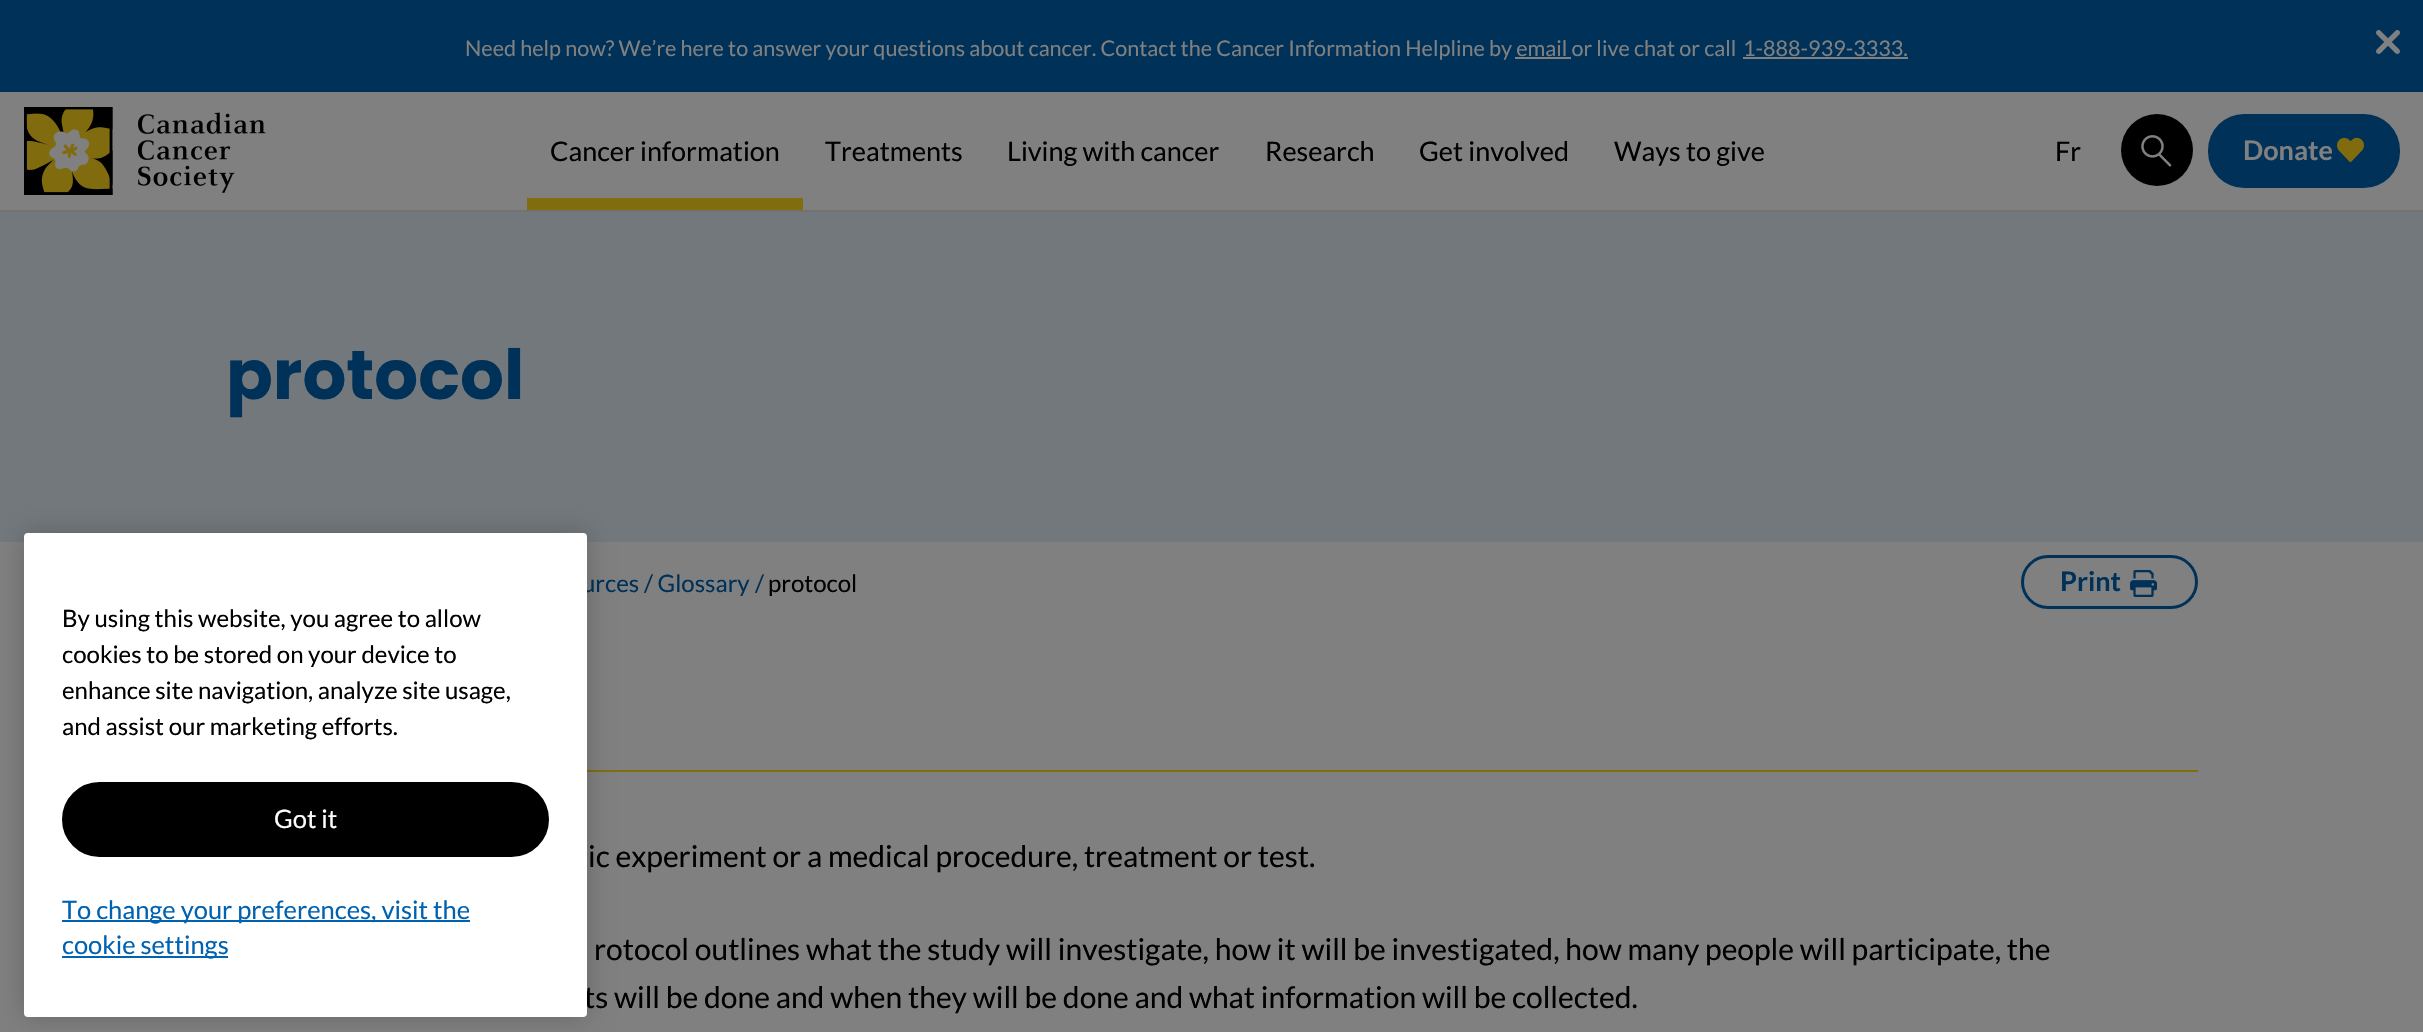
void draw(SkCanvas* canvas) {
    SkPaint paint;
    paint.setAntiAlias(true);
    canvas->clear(0xFF808080);
    paint.setColor(0xFF003158);
    canvas->drawRect(SkRect::MakeXYWH(0, 0, 2423, 92), paint);
    SkFont font1(fontMgr->matchFamilyStyle("Lato", SkFontStyle::Normal()), 21.6f);
    font1.setSubpixel(true);
    paint.setColor(0xFF808080);
    canvas->drawString("Need help now? We’re here to answer your questions about cancer. Contact the Cancer Information Helpline by email or live chat or call", 465, 56, font1, paint);
    canvas->drawRect(SkRect::MakeXYWH(1515, 57, 56, 2), paint);
    canvas->drawString("1-888-939-3333.", 1743, 56, font1, paint);
    canvas->drawRect(SkRect::MakeXYWH(1743, 57, 165, 2), paint);
    canvas->drawImageRect(SkImages::DeferredFromEncodedData(SkData::MakeFromFileName("img1.png")), SkRect::MakeXYWH(2376, 30, 24, 24), SkSamplingOptions());
    paint.setColor(0xFF727272);
    canvas->drawRect(SkRect::MakeXYWH(0, 210, 2423, 2), paint);
    canvas->drawImageRect(SkImages::DeferredFromEncodedData(SkData::MakeFromFileName("img2.png")), SkRect::MakeXYWH(24, 107, 242, 88), SkSamplingOptions());
    SkFont font2(fontMgr->matchFamilyStyle("Lato", SkFontStyle::Normal()), 27);
    font2.setSubpixel(true);
    paint.setColor(0xFF000000);
    canvas->drawString("Cancer information", 550, 161, font2, paint);
    paint.setColor(0xFF806D0E);
    canvas->drawRect(SkRect::MakeXYWH(527, 198, 276, 12), paint);
    paint.setColor(0xFF000000);
    canvas->drawString("Treatments", 825, 161, font2, paint);
    canvas->drawString("Living with cancer", 1007, 161, font2, paint);
    canvas->drawString("Research", 1265, 161, font2, paint);
    canvas->drawString("Get involved", 1419, 161, font2, paint);
    canvas->drawString("Ways to give", 1614, 161, font2, paint);
    canvas->drawString("Fr", 2055, 161, font2, paint);
    canvas->drawCircle(2157, 150, 36, paint);
    canvas->drawImageRect(SkImages::DeferredFromEncodedData(SkData::MakeFromFileName("img3.png")), SkRect::MakeXYWH(2141, 135, 31, 32), SkSamplingOptions());
    paint.setColor(0xFF003158);
    canvas->drawRoundRect(SkRect::MakeXYWH(2208, 114, 192, 74), 36, 36, paint);
    SkFont font3(fontMgr->matchFamilyStyle("Lato", SkFontStyle::Bold()), 27);
    font3.setSubpixel(true);
    paint.setColor(0xFF808080);
    canvas->drawString("Donate", 2243, 160, font3, paint);
    canvas->drawImageRect(SkImages::DeferredFromEncodedData(SkData::MakeFromFileName("img4.png")), SkRect::MakeXYWH(2337, 137, 27, 26), SkSamplingOptions());
    paint.setColor(0xFF73787C);
    canvas->drawRect(SkRect::MakeXYWH(0, 212, 2423, 330), paint);
    SkFont font4(fontMgr->matchFamilyStyle("Poppins", SkFontStyle::Bold()), 69);
    font4.setSubpixel(true);
    paint.setColor(0xFF003158);
    canvas->drawString("protocol", 226, 399, font4, paint);
    SkFont font5(fontMgr->matchFamilyStyle("Lato", SkFontStyle::Normal()), 24);
    font5.setSubpixel(true);
    canvas->drawString("urces", 582, 592, font5, paint);
    canvas->drawString("/ Glossary", 644, 592, font5, paint);
    canvas->drawString("/", 755, 592, font5, paint);
    paint.setColor(0xFF000000);
    canvas->drawString("protocol", 768, 592, font5, paint);
    paint.setStyle(SkPaint::kStroke_Style);
    paint.setStrokeWidth(3);
    paint.setColor(0xFF003158);
    canvas->drawRoundRect(SkRect::MakeXYWH(2022.5f, 556.5f, 174, 51), 25.5f, 25.5f, paint);
    paint.setStyle(SkPaint::kFill_Style);
    canvas->drawString("Print", 2060, 591, font3, paint);
    canvas->drawImageRect(SkImages::DeferredFromEncodedData(SkData::MakeFromFileName("img5.png")), SkRect::MakeXYWH(2130, 570, 27, 27), SkSamplingOptions());
    paint.setColor(0xFF806D0E);
    canvas->drawRect(SkRect::MakeXYWH(587, 770, 1611, 2), paint);
    SkFont font6(fontMgr->matchFamilyStyle("Lato", SkFontStyle::Normal()), 30);
    font6.setSubpixel(true);
    paint.setColor(0xFF000000);
    canvas->drawString("ic experiment or a medical procedure, treatment or test.", 588, 867, font6, paint);
    canvas->drawString("rotocol outlines what the study will investigate, how it will be investigated, how many people will participate, the", 594, 960, font6, paint);
    canvas->drawString("ts will be done and when they will be done and what information will be collected.", 584, 1008, font6, paint);
    paint.setColor(0x33000000);
    paint.setMaskFilter(SkMaskFilter::MakeBlur(kNormal_SkBlurStyle, 13.5f));
    canvas->drawRoundRect(SkRect::MakeXYWH(24, 533, 563, 484), 4, 4, paint);
    paint.setMaskFilter(nullptr);
    paint.setColor(0xFFFFFFFF);
    canvas->drawRoundRect(SkRect::MakeXYWH(24, 533, 563, 484), 4, 4, paint);
    paint.setColor(0xFF000000);
    canvas->drawString("By using this website, you agree to allow", 62, 627, font5, paint);
    canvas->drawString("cookies to be stored on your device to", 62, 663, font5, paint);
    canvas->drawString("enhance site navigation, analyze site usage,", 62, 699, font5, paint);
    canvas->drawString("and assist our marketing efforts.", 62, 735, font5, paint);
    canvas->drawRoundRect(SkRect::MakeXYWH(63, 783, 485, 73), 36.5f, 36.5f, paint);
    paint.setStyle(SkPaint::kStroke_Style);
    paint.setStrokeWidth(2);
    canvas->drawRoundRect(SkRect::MakeXYWH(63, 783, 485, 73), 36.5f, 36.5f, paint);
    SkFont font7(fontMgr->matchFamilyStyle("Lato", SkFontStyle::Normal()), 25.5f);
    font7.setSubpixel(true);
    paint.setStyle(SkPaint::kFill_Style);
    paint.setColor(0xFFFFFFFF);
    canvas->drawString("Got it", 274, 828, font7, paint);
    paint.setColor(0xFF0062B0);
    canvas->drawRect(SkRect::MakeXYWH(62, 920, 408, 2), paint);
    canvas->drawString("To change your preferences, visit the", 62, 919, font7, paint);
    canvas->drawRect(SkRect::MakeXYWH(62, 956, 166, 2), paint);
    canvas->drawString("cookie settings", 62, 954, font7, paint);
}
